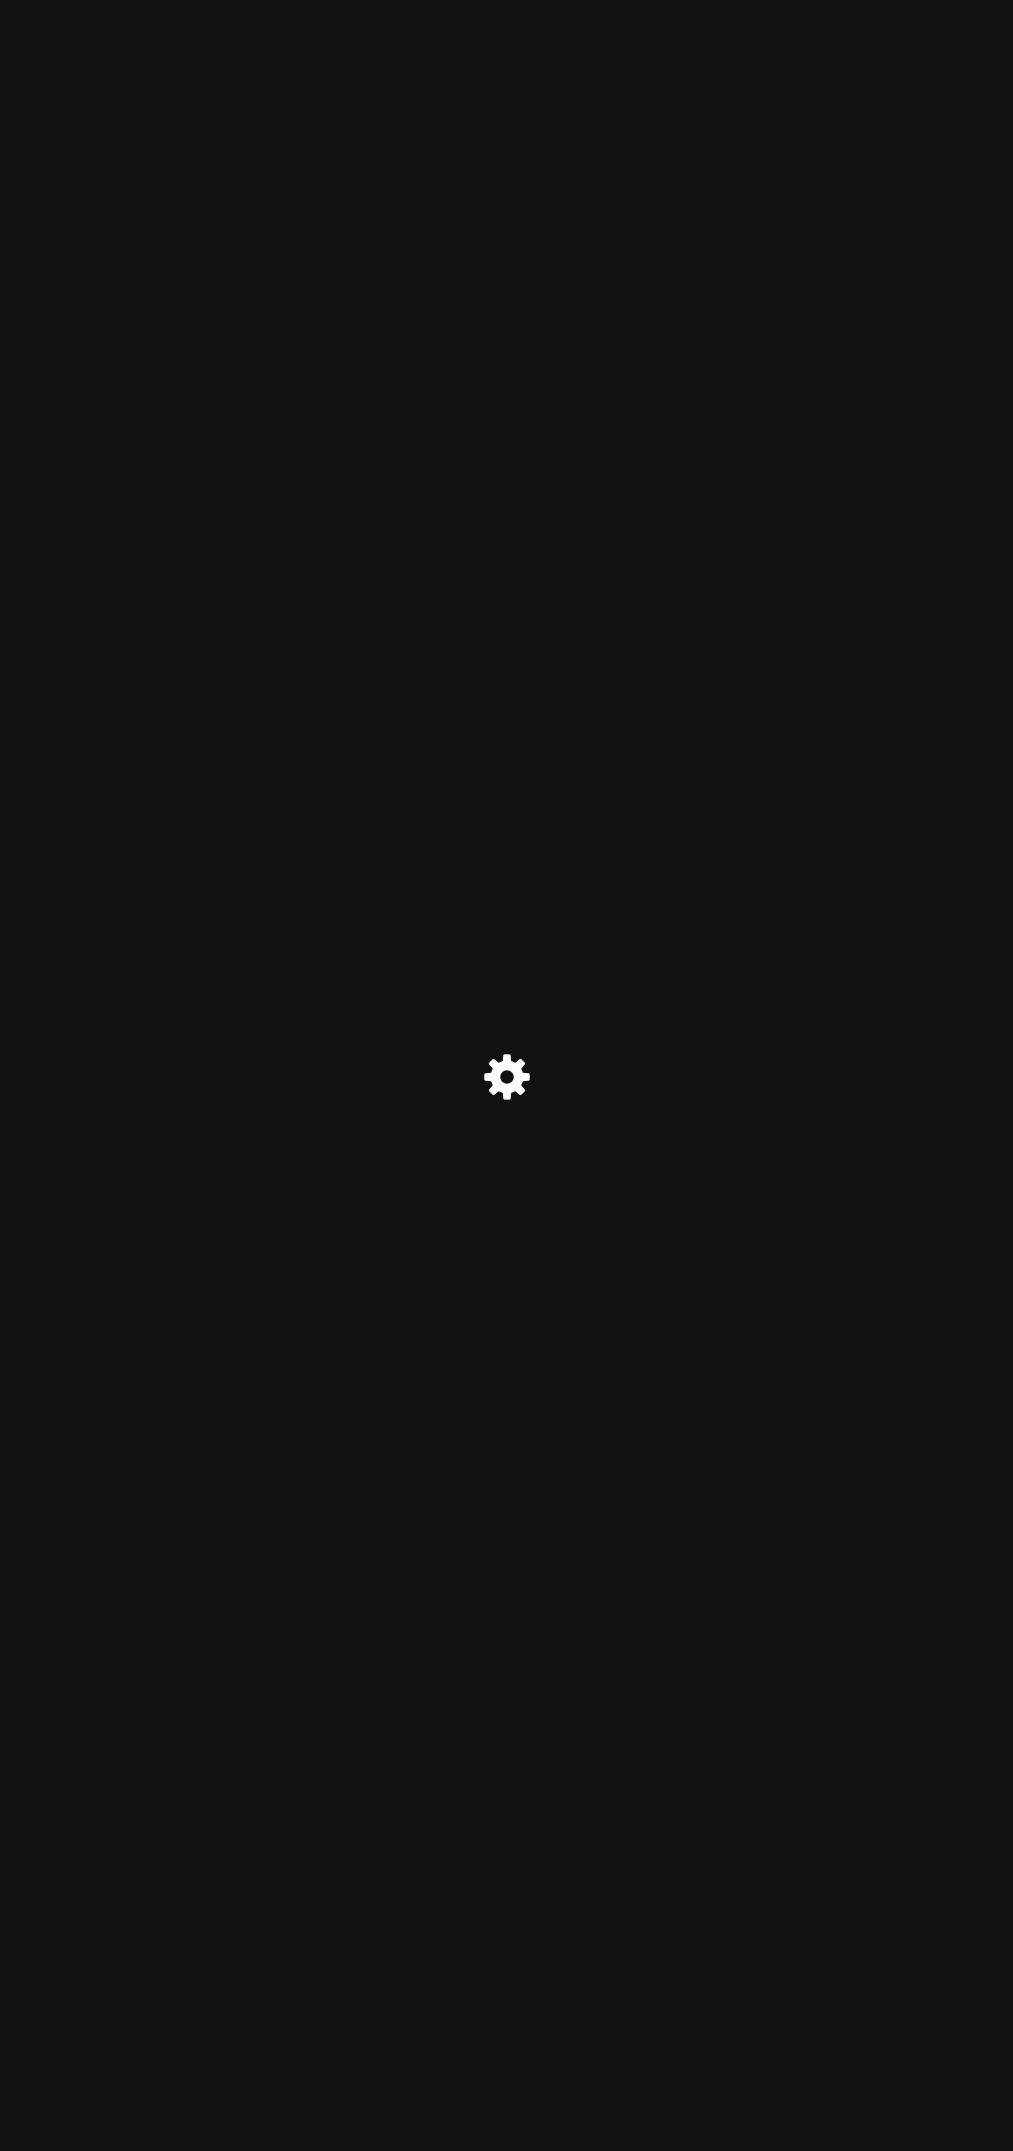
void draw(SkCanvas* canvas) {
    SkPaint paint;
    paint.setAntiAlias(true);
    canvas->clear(0xFF111111);
    canvas->drawImageRect(SkImages::DeferredFromEncodedData(SkData::MakeFromFileName("img1.png")), SkRect::MakeXYWH(484, 1054, 46, 46), SkSamplingOptions());
}
